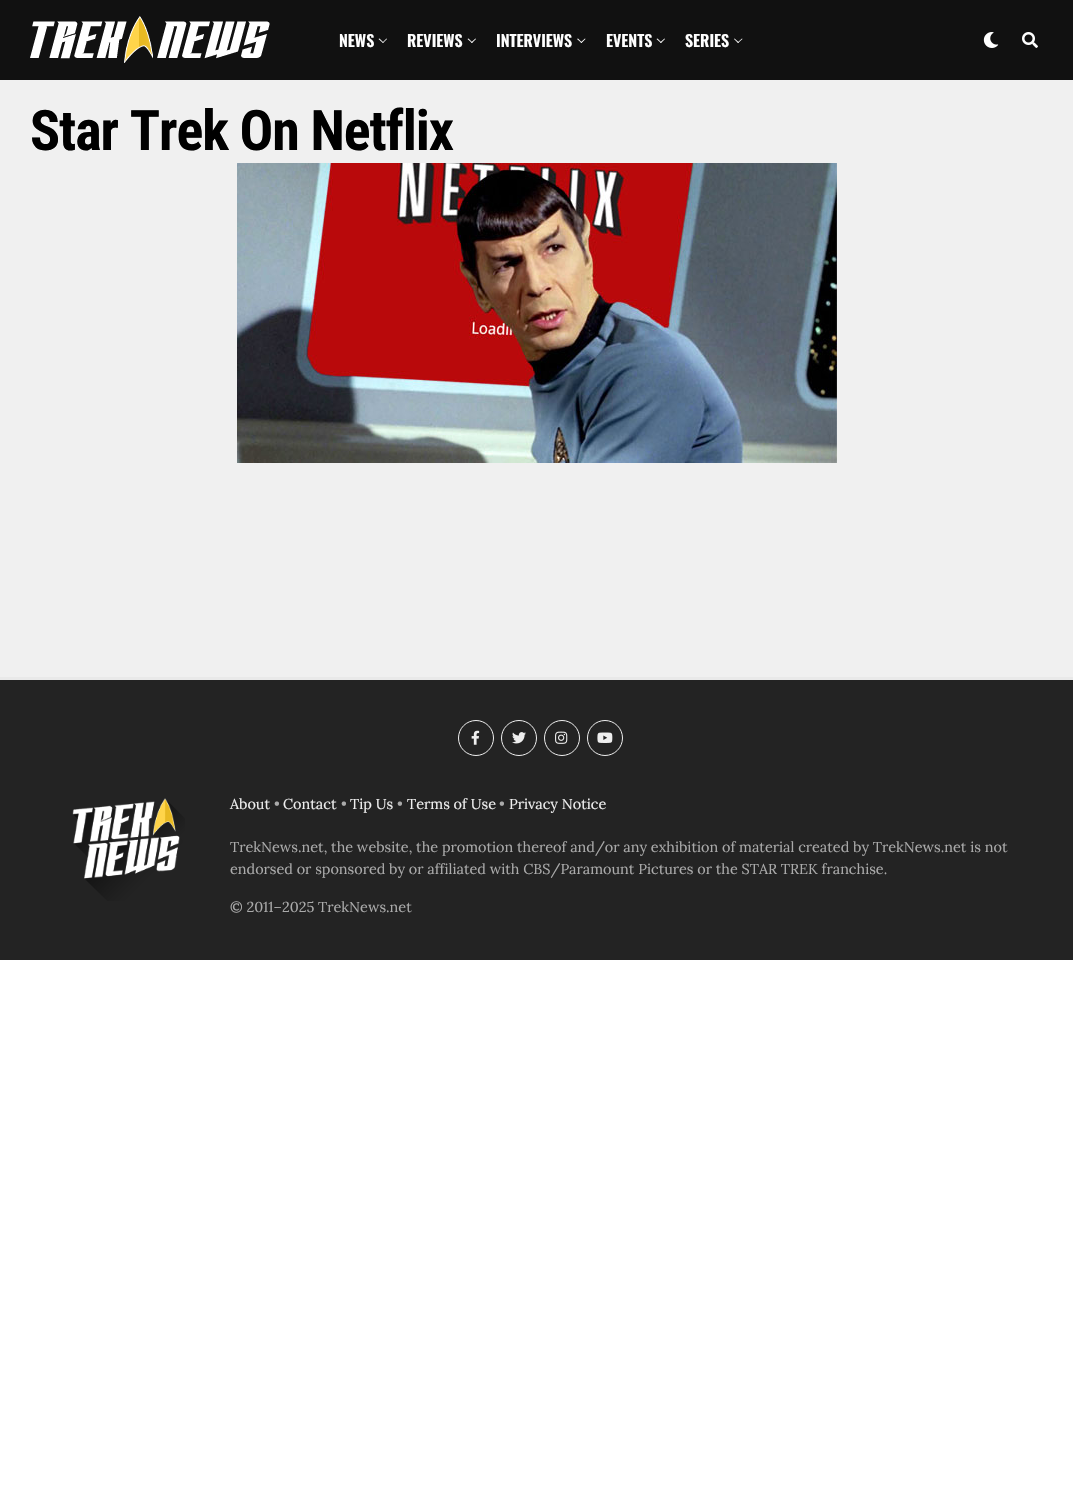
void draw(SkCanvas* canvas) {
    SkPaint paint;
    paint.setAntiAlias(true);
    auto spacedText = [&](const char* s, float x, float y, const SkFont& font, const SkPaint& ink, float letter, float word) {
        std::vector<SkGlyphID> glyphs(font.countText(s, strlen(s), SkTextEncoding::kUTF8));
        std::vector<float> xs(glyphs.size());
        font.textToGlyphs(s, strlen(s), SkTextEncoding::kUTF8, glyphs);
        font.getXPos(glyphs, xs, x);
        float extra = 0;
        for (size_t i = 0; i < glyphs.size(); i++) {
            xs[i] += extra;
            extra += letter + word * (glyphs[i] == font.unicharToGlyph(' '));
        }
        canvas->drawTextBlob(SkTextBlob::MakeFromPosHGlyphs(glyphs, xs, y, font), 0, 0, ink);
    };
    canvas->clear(0xFFFFFFFF);
    paint.setColor(0xFF111111);
    canvas->drawRect(SkRect::MakeXYWH(0, 0, 1073, 80), paint);
    canvas->drawImageRect(SkImages::DeferredFromEncodedData(SkData::MakeFromFileName("img1.png")), SkRect::MakeXYWH(30, 16, 240, 47), SkSamplingOptions());
    SkFont font1(fontMgr->matchFamilyStyle("Oswald", SkFontStyle(600, SkFontStyle::kNormal_Width, SkFontStyle::kUpright_Slant)), 16);
    font1.setSubpixel(true);
    paint.setColor(0xFFFFFFFF);
    canvas->drawString("NEWS", 339, 47, font1, paint);
    canvas->drawPath(SkPathBuilder().moveTo(386.5f, 38.5f).lineTo(387, 39).lineTo(383, 43).lineTo(382.5f, 42.5f).close().detach(), paint);
    canvas->drawPath(SkPathBuilder().moveTo(379.5f, 38.5f).lineTo(383.5f, 42.5f).lineTo(383, 43).lineTo(378.5f, 39).close().detach(), paint);
    canvas->drawString("REVIEWS", 407, 47, font1, paint);
    canvas->drawPath(SkPathBuilder().moveTo(475.5f, 38.5f).lineTo(476, 39).lineTo(472, 43).lineTo(471, 42.5f).close().detach(), paint);
    canvas->drawPath(SkPathBuilder().moveTo(468.5f, 38.5f).lineTo(472.5f, 42.5f).lineTo(472, 43).lineTo(467.5f, 39).close().detach(), paint);
    canvas->drawString("INTERVIEWS", 496, 47, font1, paint);
    canvas->drawPath(SkPathBuilder().moveTo(585, 38.5f).lineTo(585.5f, 39).lineTo(581.5f, 43).lineTo(580.5f, 42.5f).close().detach(), paint);
    canvas->drawPath(SkPathBuilder().moveTo(578, 38.5f).lineTo(582, 42.5f).lineTo(581.5f, 43).lineTo(577, 39).close().detach(), paint);
    canvas->drawString("EVENTS", 606, 47, font1, paint);
    canvas->drawPath(SkPathBuilder().moveTo(664.5f, 38.5f).lineTo(665, 39).lineTo(661, 43).lineTo(660, 42.5f).close().detach(), paint);
    canvas->drawPath(SkPathBuilder().moveTo(657.5f, 38.5f).lineTo(661.5f, 42.5f).lineTo(661, 43).lineTo(656.5f, 39).close().detach(), paint);
    canvas->drawString("SERIES", 685, 47, font1, paint);
    canvas->drawPath(SkPathBuilder().moveTo(742, 38.5f).lineTo(742.5f, 39).lineTo(738, 43).lineTo(737.5f, 42.5f).close().detach(), paint);
    canvas->drawPath(SkPathBuilder().moveTo(734.5f, 38.5f).lineTo(739, 42.5f).lineTo(738, 43).lineTo(734, 39).close().detach(), paint);
    canvas->drawImageRect(SkImages::DeferredFromEncodedData(SkData::MakeFromFileName("img2.png")), SkRect::MakeXYWH(983, 32, 16, 16), SkSamplingOptions());
    canvas->drawImageRect(SkImages::DeferredFromEncodedData(SkData::MakeFromFileName("img3.png")), SkRect::MakeXYWH(1022, 32, 16, 16), SkSamplingOptions());
    paint.setColor(0xFFF0F0F0);
    canvas->drawRect(SkRect::MakeXYWH(0, 80, 1073, 597), paint);
    SkFont font2(fontMgr->matchFamilyStyle("Roboto Condensed", SkFontStyle::Bold()), 56);
    font2.setSubpixel(true);
    paint.setColor(0xFF000000);
    spacedText("Star Trek On Netflix", 30, 150, font2, paint, -1.1f, 0);
    canvas->drawImageRect(SkImages::DeferredFromEncodedData(SkData::MakeFromFileName("img4.png")), SkRect::MakeXYWH(237, 163, 600, 300), SkSamplingOptions());
    paint.setColor(0xFF232323);
    canvas->drawRect(SkRect::MakeXYWH(0, 680, 1073, 280), paint);
    paint.setColor(0xFFE9E9E9);
    canvas->drawRect(SkRect::MakeXYWH(0, 677, 1073, 3), paint);
    paint.setStyle(SkPaint::kStroke_Style);
    paint.setStrokeWidth(1);
    paint.setColor(0xFFEEEEEE);
    canvas->drawCircle(476, 738, 17.5f, paint);
    canvas->drawImageRect(SkImages::DeferredFromEncodedData(SkData::MakeFromFileName("img5.png")), SkRect::MakeXYWH(471, 730, 9, 15), SkSamplingOptions());
    canvas->drawCircle(519, 738, 17.5f, paint);
    canvas->drawImageRect(SkImages::DeferredFromEncodedData(SkData::MakeFromFileName("img6.png")), SkRect::MakeXYWH(512, 732, 14, 12), SkSamplingOptions());
    canvas->drawCircle(562, 738, 17.5f, paint);
    canvas->drawImageRect(SkImages::DeferredFromEncodedData(SkData::MakeFromFileName("img7.png")), SkRect::MakeXYWH(555, 731, 13, 13), SkSamplingOptions());
    canvas->drawCircle(605, 738, 17.5f, paint);
    canvas->drawImageRect(SkImages::DeferredFromEncodedData(SkData::MakeFromFileName("img8.png")), SkRect::MakeXYWH(597, 732, 16, 11), SkSamplingOptions());
    canvas->drawImageRect(SkImages::DeferredFromEncodedData(SkData::MakeFromFileName("img9.png")), SkRect::MakeXYWH(72, 798, 113, 103), SkSamplingOptions());
    SkFont font3(fontMgr->matchFamilyStyle("Lora", SkFontStyle::Normal()), 14.4f);
    font3.setSubpixel(true);
    paint.setStyle(SkPaint::kFill_Style);
    canvas->drawString("About", 230, 809, font3, paint);
    paint.setColor(0xFFAAAAAA);
    canvas->drawString("•", 274, 809, font3, paint);
    paint.setColor(0xFFEEEEEE);
    canvas->drawString("Contact", 283, 809, font3, paint);
    paint.setColor(0xFFAAAAAA);
    canvas->drawString("•", 341, 809, font3, paint);
    paint.setColor(0xFFEEEEEE);
    canvas->drawString("Tip Us", 350, 809, font3, paint);
    paint.setColor(0xFFAAAAAA);
    canvas->drawString("•", 397, 809, font3, paint);
    paint.setColor(0xFFEEEEEE);
    canvas->drawString("Terms of Use", 407, 809, font3, paint);
    paint.setColor(0xFFAAAAAA);
    canvas->drawString("•", 499, 809, font3, paint);
    paint.setColor(0xFFEEEEEE);
    canvas->drawString("Privacy Notice", 509, 809, font3, paint);
    paint.setColor(0xFFAAAAAA);
    canvas->drawString("TrekNews.net, the website, the promotion thereof and/or any exhibition of material created by TrekNews.net is not", 230, 852, font3, paint);
    canvas->drawString("endorsed or sponsored by or affiliated with CBS/Paramount Pictures or the STAR TREK franchise.", 230, 874, font3, paint);
    canvas->drawString("© 2011–2025 TrekNews.net", 230, 912, font3, paint);
}
